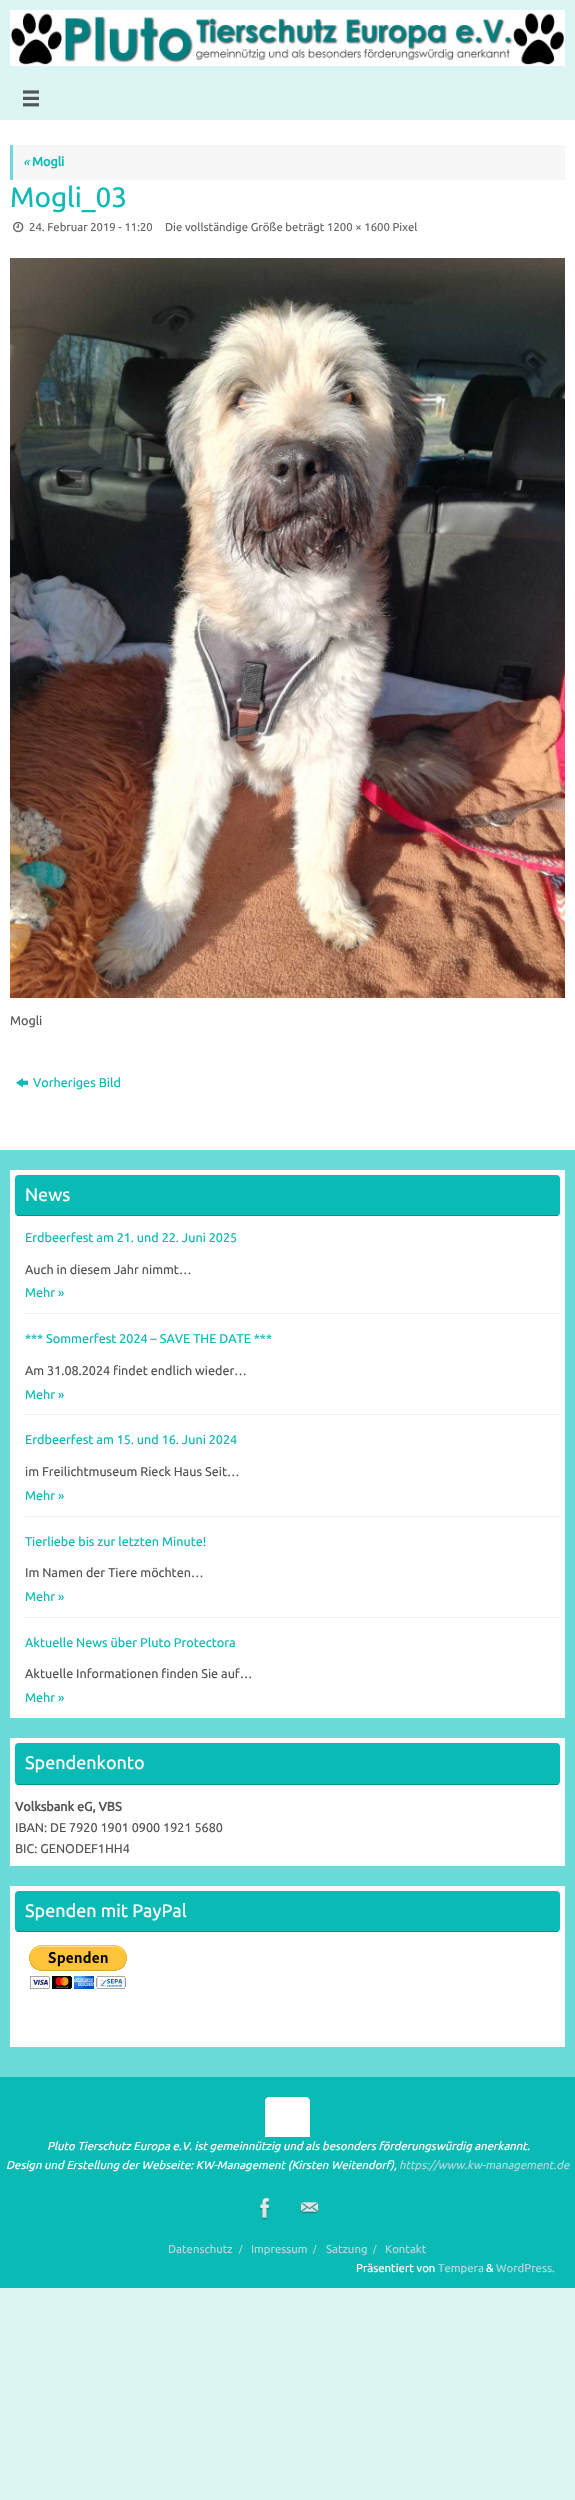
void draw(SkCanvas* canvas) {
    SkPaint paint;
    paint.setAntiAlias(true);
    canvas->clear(0xFFDBF5F3);
    canvas->drawImageRect(SkImages::DeferredFromEncodedData(SkData::MakeFromFileName("img1.png")), SkRect::MakeXYWH(10, 10, 555, 56), SkSamplingOptions());
    canvas->drawImageRect(SkImages::DeferredFromEncodedData(SkData::MakeFromFileName("img2.png")), SkRect::MakeXYWH(23, 90, 16, 17), SkSamplingOptions());
    paint.setColor(0xFFFFFFFF);
    canvas->drawRect(SkRect::MakeXYWH(0, 120, 575, 1030), paint);
    paint.setColor(0xFFF7F7F7);
    canvas->drawRect(SkRect::MakeXYWH(13, 145, 552, 35), paint);
    paint.setColor(0xFF6ADBD8);
    canvas->drawRect(SkRect::MakeXYWH(10, 145, 3, 35), paint);
    SkFont font1(fontMgr->matchFamilyStyle("Ubuntu", SkFontStyle::Italic()), 12.6f);
    font1.setSubpixel(true);
    paint.setColor(0xFF0ABAB5);
    canvas->drawString("«", 23, 166, font1, paint);
    SkFont font2(fontMgr->matchFamilyStyle("Ubuntu", SkFontStyle::Bold()), 12.6f);
    font2.setSubpixel(true);
    canvas->drawString("Mogli", 32, 166, font2, paint);
    SkFont font3(fontMgr->matchFamilyStyle("Ubuntu", SkFontStyle::Normal()), 28);
    font3.setSubpixel(true);
    canvas->drawString("Mogli_03", 10, 207, font3, paint);
    canvas->drawImageRect(SkImages::DeferredFromEncodedData(SkData::MakeFromFileName("img3.png")), SkRect::MakeXYWH(13, 221, 11, 12), SkSamplingOptions());
    SkFont font4(fontMgr->matchFamilyStyle("Ubuntu", SkFontStyle::Normal()), 11.35f);
    font4.setSubpixel(true);
    paint.setColor(0xFF666666);
    canvas->drawString("24. Februar 2019 - 11:20", 29, 231, font4, paint);
    canvas->drawString("Die vollständige Größe beträgt 1200 × 1600 Pixel", 165, 231, font4, paint);
    canvas->drawImageRect(SkImages::DeferredFromEncodedData(SkData::MakeFromFileName("img4.png")), SkRect::MakeXYWH(10, 258, 555, 740), SkSamplingOptions());
    SkFont font5(fontMgr->matchFamilyStyle("Ubuntu", SkFontStyle::Normal()), 12.6f);
    font5.setSubpixel(true);
    paint.setColor(0xFF555555);
    canvas->drawString("Mogli", 10, 1025, font5, paint);
    canvas->drawImageRect(SkImages::DeferredFromEncodedData(SkData::MakeFromFileName("img5.png")), SkRect::MakeXYWH(16, 1078, 12, 10), SkSamplingOptions());
    paint.setColor(0xFF0ABAB5);
    canvas->drawString("Vorheriges Bild", 33, 1087, font5, paint);
    paint.setColor(0xFF6ADBD8);
    canvas->drawRect(SkRect::MakeXYWH(0, 1150, 575, 927), paint);
    paint.setColor(0xFFFFFFFF);
    canvas->drawRect(SkRect::MakeXYWH(10, 1170, 555, 548), paint);
    paint.setColor(0xFF0ABAB5);
    canvas->drawRoundRect(SkRect::MakeXYWH(15, 1175, 545, 41), 4, 4, paint);
    paint.setColor(0xFF00928D);
    canvas->drawRect(SkRect::MakeXYWH(17, 1215, 541, 1), paint);
    SkFont font6(fontMgr->matchFamilyStyle("Ubuntu", SkFontStyle::Normal()), 18);
    font6.setSubpixel(true);
    paint.setColor(0xFFFFFFFF);
    canvas->drawString("News", 25, 1201, font6, paint);
    paint.setColor(0xFFF0F0F0);
    canvas->drawRect(SkRect::MakeXYWH(25, 1313, 535, 1), paint);
    paint.setColor(0xFF0ABAB5);
    canvas->drawString("Erdbeerfest am 21. und 22. Juni 2025", 25, 1242, font5, paint);
    paint.setColor(0xFF555555);
    canvas->drawString("Auch in diesem Jahr nimmt…", 25, 1274, font5, paint);
    paint.setColor(0xFF0ABAB5);
    canvas->drawString("Mehr »", 25, 1297, font5, paint);
    paint.setColor(0xFFF0F0F0);
    canvas->drawRect(SkRect::MakeXYWH(25, 1414, 535, 1), paint);
    paint.setColor(0xFF0ABAB5);
    canvas->drawString("*** Sommerfest 2024 – SAVE THE DATE ***", 25, 1343, font5, paint);
    paint.setColor(0xFF555555);
    canvas->drawString("Am 31.08.2024 findet endlich wieder…", 25, 1375, font5, paint);
    paint.setColor(0xFF0ABAB5);
    canvas->drawString("Mehr »", 25, 1399, font5, paint);
    paint.setColor(0xFFF0F0F0);
    canvas->drawRect(SkRect::MakeXYWH(25, 1516, 535, 1), paint);
    paint.setColor(0xFF0ABAB5);
    canvas->drawString("Erdbeerfest am 15. und 16. Juni 2024", 25, 1444, font5, paint);
    paint.setColor(0xFF555555);
    canvas->drawString("im Freilichtmuseum Rieck Haus Seit…", 25, 1476, font5, paint);
    paint.setColor(0xFF0ABAB5);
    canvas->drawString("Mehr »", 25, 1500, font5, paint);
    paint.setColor(0xFFF0F0F0);
    canvas->drawRect(SkRect::MakeXYWH(25, 1617, 535, 1), paint);
    paint.setColor(0xFF0ABAB5);
    canvas->drawString("Tierliebe bis zur letzten Minute!", 25, 1546, font5, paint);
    paint.setColor(0xFF555555);
    canvas->drawString("Im Namen der Tiere möchten…", 25, 1577, font5, paint);
    paint.setColor(0xFF0ABAB5);
    canvas->drawString("Mehr »", 25, 1601, font5, paint);
    canvas->drawString("Aktuelle News über Pluto Protectora", 25, 1647, font5, paint);
    paint.setColor(0xFF555555);
    canvas->drawString("Aktuelle Informationen finden Sie auf…", 25, 1678, font5, paint);
    paint.setColor(0xFF0ABAB5);
    canvas->drawString("Mehr »", 25, 1702, font5, paint);
    paint.setColor(0xFFFFFFFF);
    canvas->drawRect(SkRect::MakeXYWH(10, 1738, 555, 128), paint);
    paint.setColor(0xFF0ABAB5);
    canvas->drawRoundRect(SkRect::MakeXYWH(15, 1743, 545, 42), 4, 4, paint);
    paint.setColor(0xFF00928D);
    canvas->drawRect(SkRect::MakeXYWH(17, 1784, 541, 1), paint);
    paint.setColor(0xFFFFFFFF);
    canvas->drawString("Spendenkonto", 25, 1769, font6, paint);
    paint.setColor(0xFF555555);
    canvas->drawString("Volksbank eG, VBS", 15, 1811, font2, paint);
    canvas->drawString("IBAN: DE 7920 1901 0900 1921 5680", 15, 1832, font5, paint);
    canvas->drawString("BIC: GENODEF1HH4", 15, 1853, font5, paint);
    paint.setColor(0xFFFFFFFF);
    canvas->drawRect(SkRect::MakeXYWH(10, 1886, 555, 161), paint);
    paint.setColor(0xFF0ABAB5);
    canvas->drawRoundRect(SkRect::MakeXYWH(15, 1891, 545, 41), 4, 4, paint);
    paint.setColor(0xFF00928D);
    canvas->drawRect(SkRect::MakeXYWH(17, 1931, 541, 1), paint);
    paint.setColor(0xFFFFFFFF);
    canvas->drawString("Spenden mit PayPal", 25, 1917, font6, paint);
    canvas->drawImageRect(SkImages::DeferredFromEncodedData(SkData::MakeFromFileName("img6.png")), SkRect::MakeXYWH(29, 1945, 98, 44), SkSamplingOptions());
    paint.setColor(0xFF0ABAB5);
    canvas->drawRect(SkRect::MakeXYWH(0, 2077, 575, 211), paint);
    paint.setColor(0xFFFFFFFF);
    canvas->drawPath(SkPathBuilder().moveTo(269, 2097).lineTo(306, 2097).cubicTo(308, 2097, 310, 2099, 310, 2101).lineTo(310, 2137).lineTo(265, 2137).lineTo(265, 2101).cubicTo(265, 2099, 267, 2097, 269, 2097).close().detach(), paint);
    SkFont font7(fontMgr->matchFamilyStyle("Ubuntu", SkFontStyle::Italic()), 11.35f);
    font7.setSubpixel(true);
    canvas->drawString("Pluto Tierschutz Europa e.V. ist gemeinnützig und als besonders förderungswürdig anerkannt.", 47, 2150, font7, paint);
    canvas->drawString("Design und Erstellung der Webseite: KW-Management (Kirsten Weitendorf),", 6, 2169, font7, paint);
    paint.setColor(0xFFB3D8DF);
    canvas->drawString("https://www.kw-management.de", 399, 2169, font7, paint);
    canvas->drawImageRect(SkImages::DeferredFromEncodedData(SkData::MakeFromFileName("img7.png")), SkRect::MakeXYWH(259, 2198, 11, 22), SkSamplingOptions());
    canvas->drawImageRect(SkImages::DeferredFromEncodedData(SkData::MakeFromFileName("img8.png")), SkRect::MakeXYWH(300, 2202, 19, 12), SkSamplingOptions());
    canvas->drawString("Datenschutz", 168, 2253, font4, paint);
    SkFont font8(fontMgr->matchFamilyStyle("Ubuntu", SkFontStyle::Normal()), 9);
    font8.setSubpixel(true);
    canvas->drawString("/", 239, 2252, font8, paint);
    canvas->drawString("Impressum", 251, 2253, font4, paint);
    canvas->drawString("/", 313, 2252, font8, paint);
    canvas->drawString("Satzung", 326, 2253, font4, paint);
    canvas->drawString("/", 373, 2252, font8, paint);
    canvas->drawString("Kontakt", 385, 2253, font4, paint);
    paint.setColor(0xFFFFFFFF);
    canvas->drawString("Präsentiert von", 356, 2272, font4, paint);
    paint.setColor(0xFFB3D8DF);
    canvas->drawString("Tempera", 438, 2272, font4, paint);
    paint.setColor(0xFFFFFFFF);
    canvas->drawString("&", 486, 2272, font4, paint);
    paint.setColor(0xFFB3D8DF);
    canvas->drawString("WordPress.", 496, 2272, font4, paint);
}
